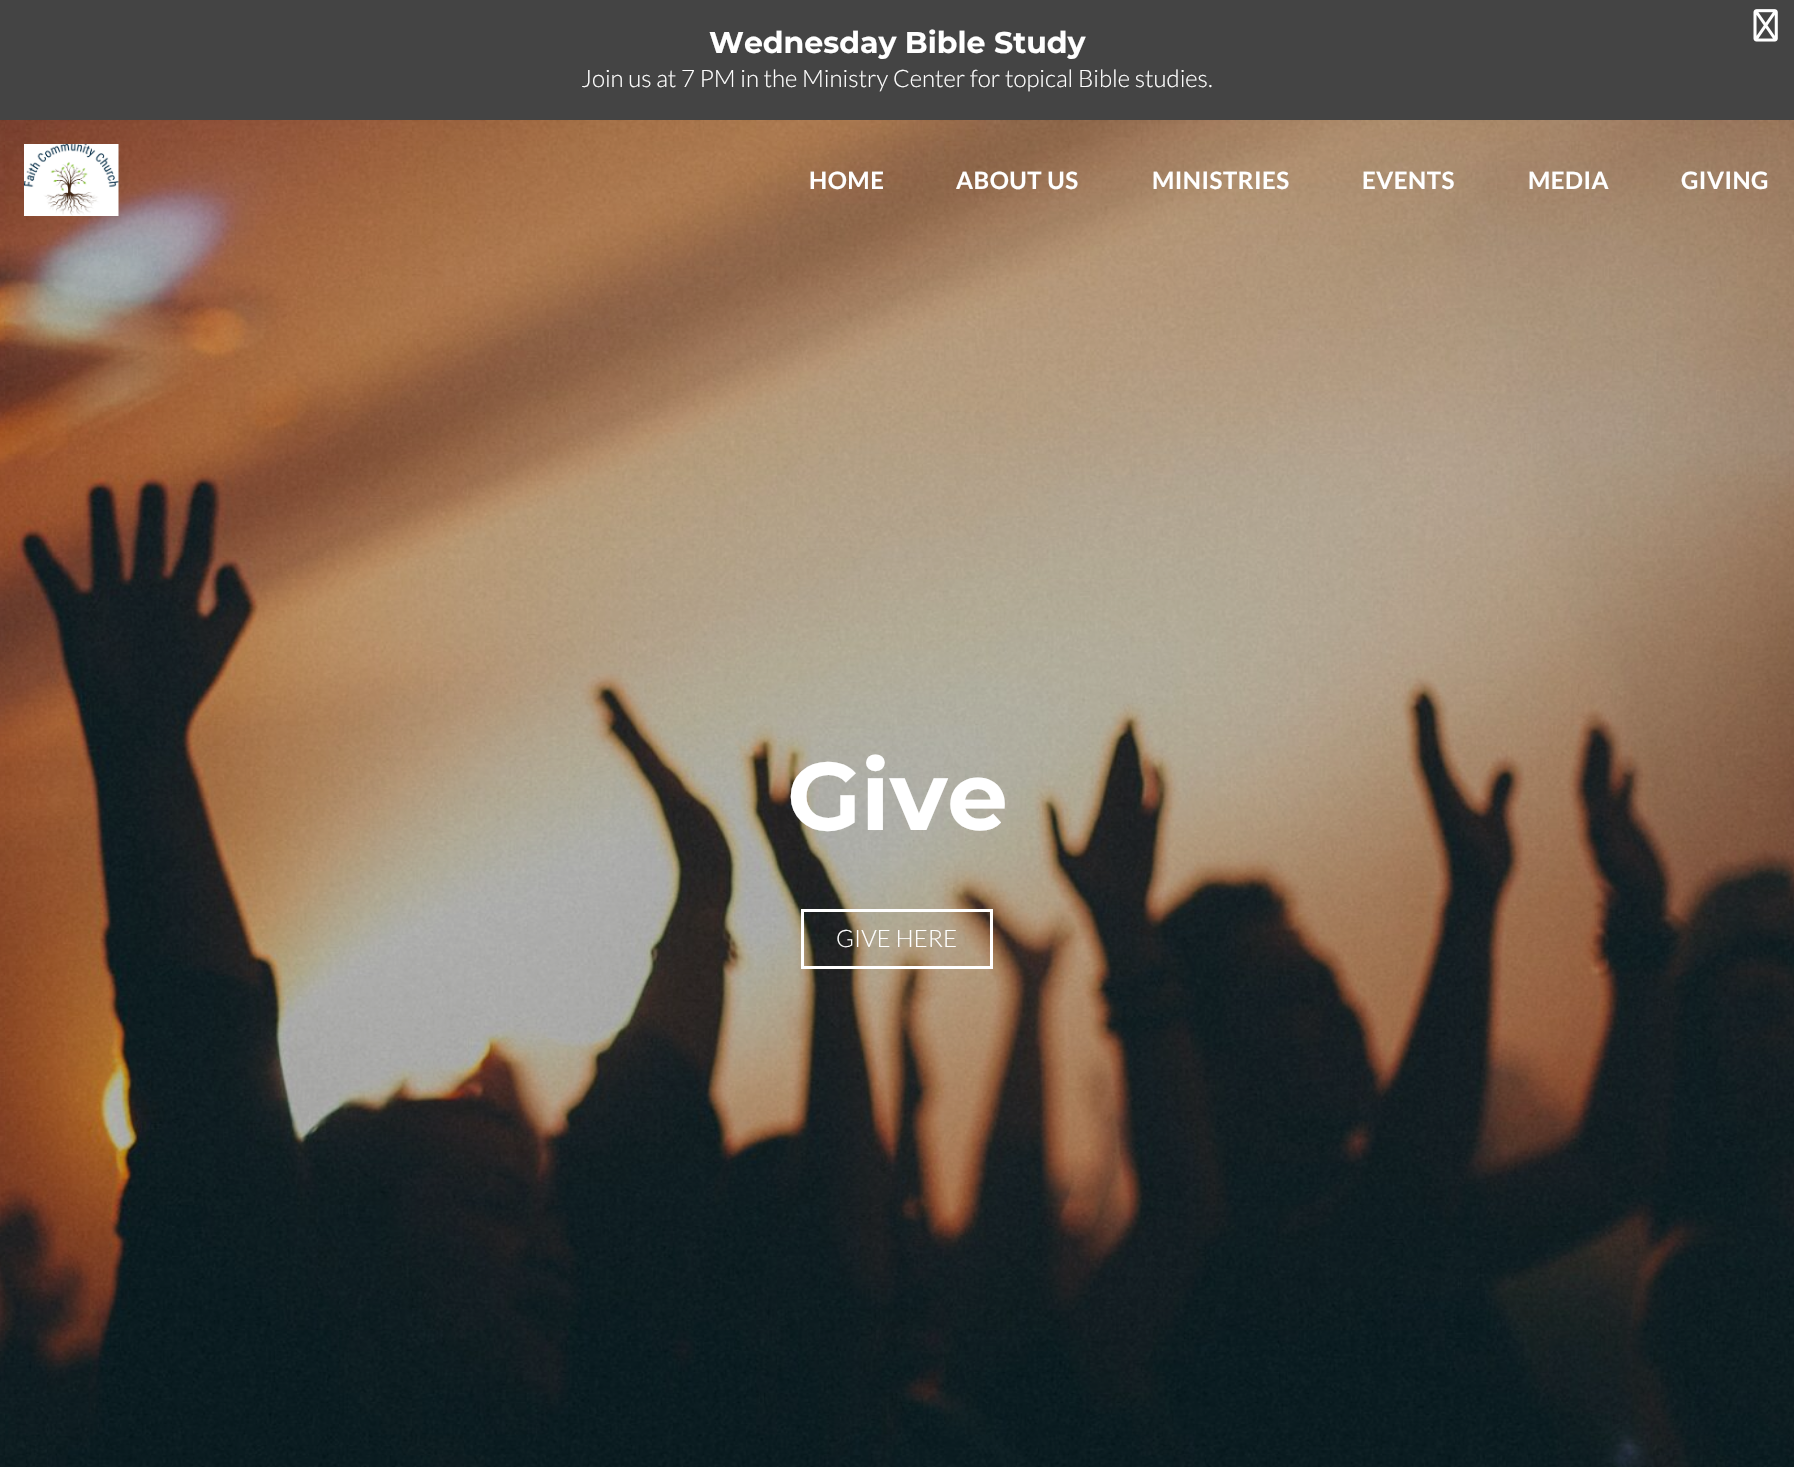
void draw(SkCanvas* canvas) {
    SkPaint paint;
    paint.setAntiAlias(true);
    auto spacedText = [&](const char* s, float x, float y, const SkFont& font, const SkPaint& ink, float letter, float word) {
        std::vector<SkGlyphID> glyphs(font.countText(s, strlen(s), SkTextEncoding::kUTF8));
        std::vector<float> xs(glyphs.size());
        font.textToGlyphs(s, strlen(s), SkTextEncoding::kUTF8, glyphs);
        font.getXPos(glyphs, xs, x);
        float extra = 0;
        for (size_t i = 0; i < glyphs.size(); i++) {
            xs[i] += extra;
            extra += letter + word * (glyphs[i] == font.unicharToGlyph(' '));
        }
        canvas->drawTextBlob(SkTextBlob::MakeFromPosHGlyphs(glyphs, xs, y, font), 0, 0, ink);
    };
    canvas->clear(0xFF444444);
    canvas->drawImageRect(SkImages::DeferredFromEncodedData(SkData::MakeFromFileName("img1.png")), SkRect::MakeXYWH(1753, 9, 25, 33), SkSamplingOptions());
    SkFont font1(fontMgr->matchFamilyStyle("Montserrat", SkFontStyle::Bold()), 30);
    font1.setSubpixel(true);
    paint.setColor(0xFFFFFFFF);
    canvas->drawString("Wednesday Bible Study", 709, 53, font1, paint);
    SkFont font2(fontMgr->matchFamilyStyle("Lato", SkFontStyle(300, SkFontStyle::kNormal_Width, SkFontStyle::kUpright_Slant)), 24);
    font2.setSubpixel(true);
    canvas->drawString("Join us at 7 PM in the Ministry Center for topical Bible studies.", 581, 87, font2, paint);
    canvas->drawImageRect(SkImages::DeferredFromEncodedData(SkData::MakeFromFileName("img3.png")), SkRect::MakeXYWH(0, 120, 1794, 1347), SkSamplingOptions());
    canvas->drawImageRect(SkImages::DeferredFromEncodedData(SkData::MakeFromFileName("img2.png")), SkRect::MakeXYWH(24, 144, 95, 72), SkSamplingOptions());
    SkFont font3(fontMgr->matchFamilyStyle("Lato", SkFontStyle::Bold()), 24);
    font3.setSubpixel(true);
    spacedText("HOME", 809, 189, font3, paint, 0.5f, 0);
    spacedText("ABOUT US", 956, 189, font3, paint, 0.5f, 0);
    spacedText("MINISTRIES", 1152, 189, font3, paint, 0.5f, 0);
    spacedText("EVENTS", 1362, 189, font3, paint, 0.5f, 0);
    spacedText("MEDIA", 1528, 189, font3, paint, 0.5f, 0);
    spacedText("GIVING", 1681, 189, font3, paint, 0.5f, 0);
    SkFont font4(fontMgr->matchFamilyStyle("Montserrat", SkFontStyle::Bold()), 96);
    font4.setSubpixel(true);
    canvas->drawString("Give", 787, 830, font4, paint);
    paint.setStyle(SkPaint::kStroke_Style);
    paint.setStrokeWidth(3);
    canvas->drawRect(SkRect::MakeXYWH(802.5f, 910.5f, 189, 57), paint);
    paint.setStyle(SkPaint::kFill_Style);
    canvas->drawString("GIVE HERE", 836, 947, font2, paint);
}
